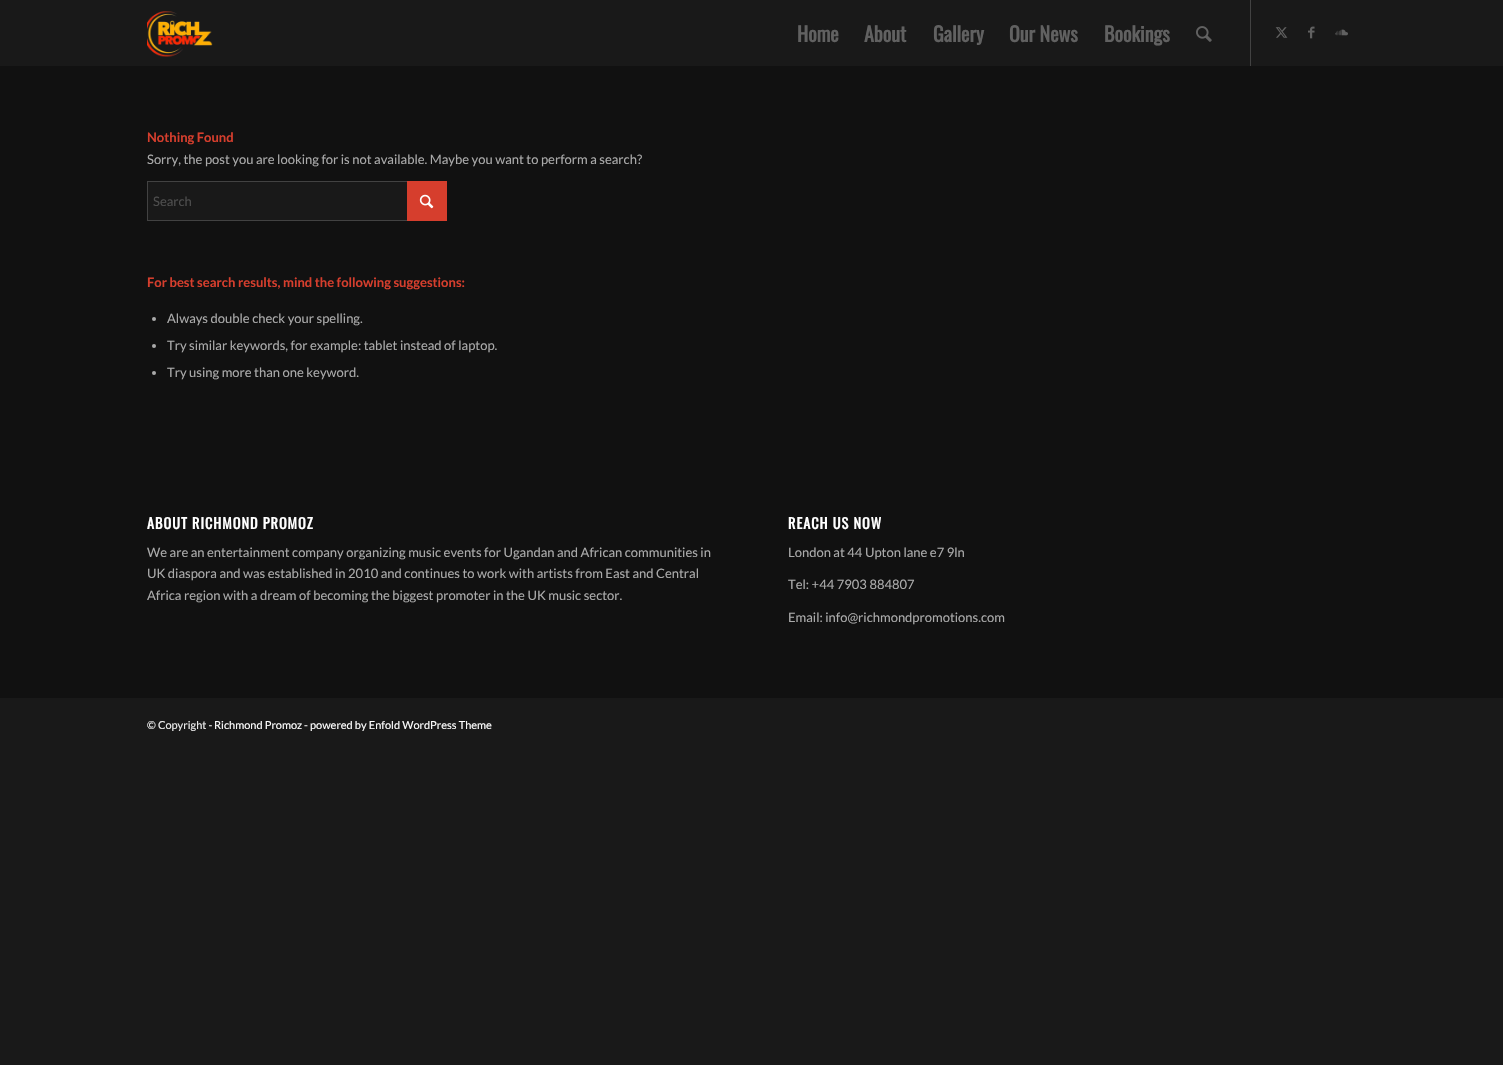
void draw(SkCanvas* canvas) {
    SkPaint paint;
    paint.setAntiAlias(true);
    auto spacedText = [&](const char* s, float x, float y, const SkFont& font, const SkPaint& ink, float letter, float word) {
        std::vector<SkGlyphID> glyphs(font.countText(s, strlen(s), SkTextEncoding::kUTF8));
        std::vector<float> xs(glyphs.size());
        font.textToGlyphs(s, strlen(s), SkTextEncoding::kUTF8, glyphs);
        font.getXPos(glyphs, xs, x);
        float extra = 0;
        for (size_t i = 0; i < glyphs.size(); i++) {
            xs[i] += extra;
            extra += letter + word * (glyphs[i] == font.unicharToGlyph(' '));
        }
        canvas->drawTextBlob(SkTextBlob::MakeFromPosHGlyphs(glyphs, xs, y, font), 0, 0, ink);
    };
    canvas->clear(0xFF191919);
    canvas->drawImageRect(SkImages::DeferredFromEncodedData(SkData::MakeFromFileName("img1.png")), SkRect::MakeXYWH(147, 11, 66, 46), SkSamplingOptions());
    paint.setColor(0xFF424242);
    canvas->drawRect(SkRect::MakeXYWH(1250, 0, 1, 66), paint);
    SkFont font1(fontMgr->matchFamilyStyle("Oswald", SkFontStyle::Bold()), 20);
    font1.setSubpixel(true);
    paint.setColor(0xFF616161);
    canvas->drawString("Home", 797, 42, font1, paint);
    canvas->drawString("About", 864, 42, font1, paint);
    canvas->drawString("Gallery", 933, 42, font1, paint);
    canvas->drawString("Our News", 1009, 42, font1, paint);
    canvas->drawString("Bookings", 1104, 42, font1, paint);
    canvas->drawImageRect(SkImages::DeferredFromEncodedData(SkData::MakeFromFileName("img2.png")), SkRect::MakeXYWH(1196, 26, 16, 16), SkSamplingOptions());
    canvas->drawImageRect(SkImages::DeferredFromEncodedData(SkData::MakeFromFileName("img3.png")), SkRect::MakeXYWH(1275, 27, 13, 11), SkSamplingOptions());
    canvas->drawImageRect(SkImages::DeferredFromEncodedData(SkData::MakeFromFileName("img4.png")), SkRect::MakeXYWH(1308, 26, 7, 13), SkSamplingOptions());
    canvas->drawImageRect(SkImages::DeferredFromEncodedData(SkData::MakeFromFileName("img5.png")), SkRect::MakeXYWH(1335, 29, 13, 7), SkSamplingOptions());
    paint.setColor(0xFF111111);
    canvas->drawRect(SkRect::MakeXYWH(0, 66, 1503, 632), paint);
    SkFont font2(fontMgr->matchFamilyStyle("Lato", SkFontStyle::Bold()), 13);
    font2.setSubpixel(true);
    paint.setColor(0xFFD63E2D);
    canvas->drawString("Nothing Found", 147, 142, font2, paint);
    SkFont font3(fontMgr->matchFamilyStyle("Lato", SkFontStyle::Normal()), 13);
    font3.setSubpixel(true);
    paint.setColor(0xFFAAAAAA);
    canvas->drawString("Sorry, the post you are looking for is not available. Maybe you want to perform a search?", 147, 164, font3, paint);
    paint.setColor(0xFF191919);
    canvas->drawRect(SkRect::MakeXYWH(148, 182, 259, 38), paint);
    paint.setStyle(SkPaint::kStroke_Style);
    paint.setStrokeWidth(1);
    paint.setColor(0xFF424242);
    canvas->drawRect(SkRect::MakeXYWH(147.5f, 181.5f, 299, 39), paint);
    paint.setStyle(SkPaint::kFill_Style);
    paint.setColor(0xFFD63E2D);
    canvas->drawRect(SkRect::MakeXYWH(407, 181, 40, 40), paint);
    paint.setColor(0xFF4D4D4D);
    canvas->drawString("Search", 153, 206, font3, paint);
    canvas->drawImageRect(SkImages::DeferredFromEncodedData(SkData::MakeFromFileName("img6.png")), SkRect::MakeXYWH(419, 194, 15, 15), SkSamplingOptions());
    paint.setColor(0xFFD63E2D);
    canvas->drawString("For best search results, mind the following suggestions:", 147, 287, font2, paint);
    paint.setColor(0xFFAAAAAA);
    canvas->drawCircle(154, 319, 2, paint);
    canvas->drawString("Always double check your spelling.", 167, 323, font3, paint);
    canvas->drawCircle(154, 346, 2, paint);
    canvas->drawString("Try similar keywords, for example: tablet instead of laptop.", 167, 350, font3, paint);
    canvas->drawCircle(154, 373, 2, paint);
    canvas->drawString("Try using more than one keyword.", 167, 377, font3, paint);
    SkFont font4(fontMgr->matchFamilyStyle("Oswald", SkFontStyle::Bold()), 14.25f);
    font4.setSubpixel(true);
    paint.setColor(0xFFFFFFFF);
    spacedText("ABOUT RICHMOND PROMOZ", 147, 529, font4, paint, 1, 0);
    paint.setColor(0xFFAAAAAA);
    canvas->drawString("We are an entertainment company organizing music events for Ugandan and African communities in", 147, 557, font3, paint);
    canvas->drawString("UK diaspora and was established in 2010 and continues to work with artists from East and Central", 147, 578, font3, paint);
    canvas->drawString("Africa region with a dream of becoming the biggest promoter in the UK music sector.", 147, 600, font3, paint);
    paint.setColor(0xFFFFFFFF);
    spacedText("REACH US NOW", 788, 529, font4, paint, 1, 0);
    paint.setColor(0xFFAAAAAA);
    canvas->drawString("London at 44 Upton lane e7 9ln", 788, 557, font3, paint);
    canvas->drawString("Tel: +44 7903 884807", 788, 589, font3, paint);
    canvas->drawString("Email: info@richmondpromotions.com", 788, 622, font3, paint);
    SkFont font5(fontMgr->matchFamilyStyle("Lato", SkFontStyle::Normal()), 11);
    font5.setSubpixel(true);
    paint.setColor(0xFFEEEEEE);
    canvas->drawString("© Copyright -", 147, 729, font5, paint);
    paint.setColor(0xFFFFFFFF);
    canvas->drawString("Richmond Promoz", 214, 729, font5, paint);
    paint.setColor(0xFFEEEEEE);
    canvas->drawString("-", 304, 729, font5, paint);
    paint.setColor(0xFFFFFFFF);
    canvas->drawString("powered by Enfold WordPress Theme", 310, 729, font5, paint);
}
